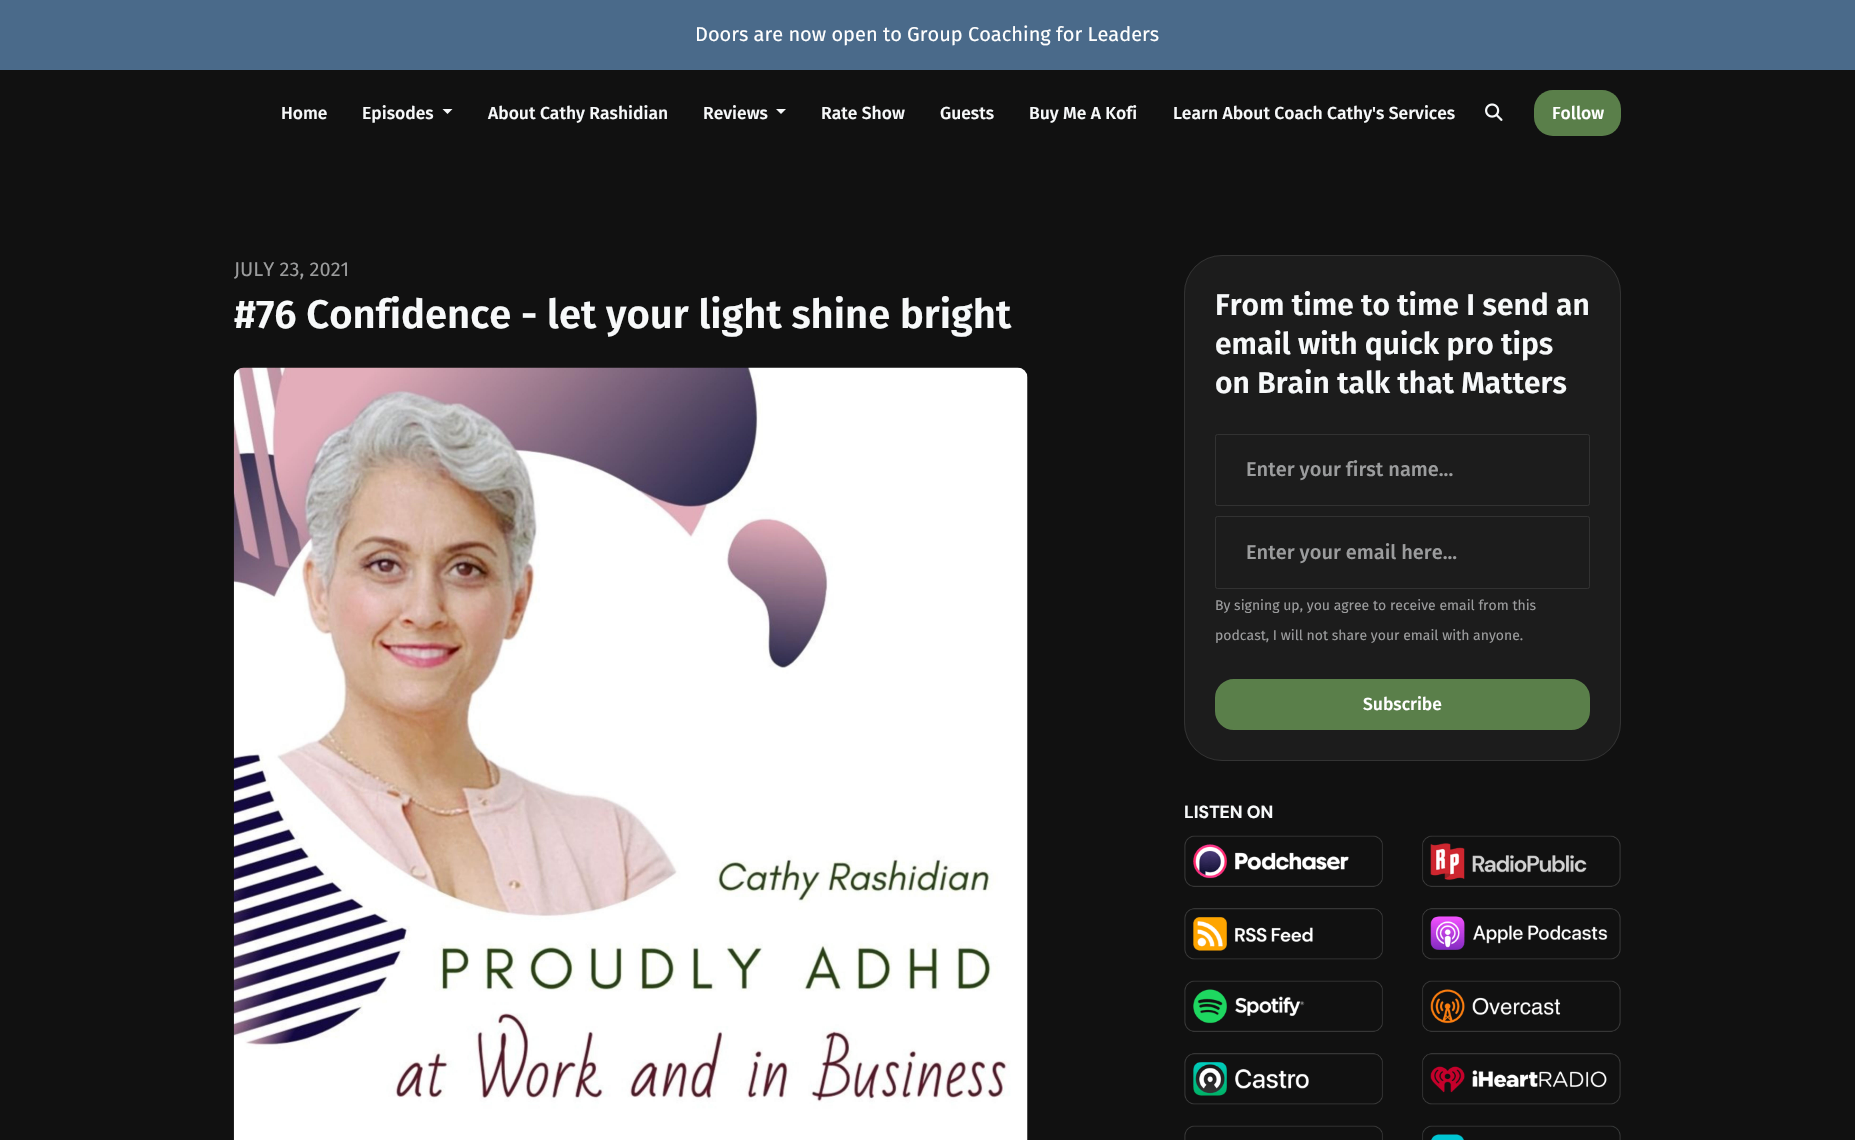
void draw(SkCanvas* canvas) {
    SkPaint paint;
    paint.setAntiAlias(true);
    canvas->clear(0xFF111111);
    paint.setColor(0xFF4A6A8A);
    canvas->drawRect(SkRect::MakeXYWH(0, 0, 1855, 70), paint);
    SkFont font1(fontMgr->matchFamilyStyle("Fira Sans", SkFontStyle::Normal()), 20);
    font1.setSubpixel(true);
    paint.setColor(0xFFFFFFFF);
    canvas->drawString("Doors are now open to Group Coaching for Leaders", 695, 41, font1, paint);
    SkFont font2(fontMgr->matchFamilyStyle("Fira Sans", SkFontStyle(500, SkFontStyle::kNormal_Width, SkFontStyle::kUpright_Slant)), 17.5f);
    font2.setSubpixel(true);
    paint.setColor(0xFFF7F9FA);
    canvas->drawString("Home", 281, 119, font2, paint);
    canvas->drawString("Episodes", 362, 119, font2, paint);
    canvas->drawPath(SkPathBuilder().moveTo(442.5f, 109).lineTo(452.5f, 109).lineTo(447.5f, 114).close().detach(), paint);
    canvas->drawString("About Cathy Rashidian", 488, 119, font2, paint);
    canvas->drawString("Reviews", 703, 119, font2, paint);
    canvas->drawPath(SkPathBuilder().moveTo(776, 109).lineTo(786, 109).lineTo(781, 114).close().detach(), paint);
    canvas->drawString("Rate Show", 821, 119, font2, paint);
    canvas->drawString("Guests", 940, 119, font2, paint);
    canvas->drawString("Buy Me A Kofi", 1029, 119, font2, paint);
    canvas->drawString("Learn About Coach Cathy's Services", 1173, 119, font2, paint);
    canvas->drawImageRect(SkImages::DeferredFromEncodedData(SkData::MakeFromFileName("img1.png")), SkRect::MakeXYWH(1485, 103, 18, 18), SkSamplingOptions());
    paint.setColor(0xFF5A7F4A);
    canvas->drawRoundRect(SkRect::MakeXYWH(1534, 90, 87, 46), 19, 19, paint);
    paint.setColor(0xFFFFFFFF);
    canvas->drawString("Follow", 1552, 119, font2, paint);
    paint.setColor(0xFF9B9C9D);
    canvas->drawString("JULY 23, 2021", 234, 276, font1, paint);
    SkFont font3(fontMgr->matchFamilyStyle("Fira Sans", SkFontStyle(600, SkFontStyle::kNormal_Width, SkFontStyle::kUpright_Slant)), 40);
    font3.setSubpixel(true);
    paint.setColor(0xFFF7F9FA);
    canvas->drawString("#76 Confidence - let your light shine bright", 234, 328, font3, paint);
    canvas->drawImageRect(SkImages::DeferredFromEncodedData(SkData::MakeFromFileName("img2.png")), SkRect::MakeXYWH(233, 367, 795, 773), SkSamplingOptions());
    paint.setColor(0xFF1C1C1C);
    canvas->drawRoundRect(SkRect::MakeXYWH(1184, 255, 437, 506), 38, 38, paint);
    paint.setStyle(SkPaint::kStroke_Style);
    paint.setStrokeWidth(1);
    paint.setColor(0x1AF7F9FA);
    canvas->drawRoundRect(SkRect::MakeXYWH(1184.5f, 255.5f, 436, 505), 37.5f, 37.5f, paint);
    SkFont font4(fontMgr->matchFamilyStyle("Fira Sans", SkFontStyle(600, SkFontStyle::kNormal_Width, SkFontStyle::kUpright_Slant)), 30);
    font4.setSubpixel(true);
    paint.setStyle(SkPaint::kFill_Style);
    paint.setColor(0xFFF7F9FA);
    canvas->drawString("From time to time I send an", 1215, 315, font4, paint);
    canvas->drawString("email with quick pro tips", 1215, 354, font4, paint);
    canvas->drawString("on Brain talk that Matters", 1215, 393, font4, paint);
    paint.setStyle(SkPaint::kStroke_Style);
    paint.setColor(0xFF323232);
    canvas->drawRoundRect(SkRect::MakeXYWH(1215.5f, 434.5f, 374, 71), 2, 2, paint);
    SkFont font5(fontMgr->matchFamilyStyle("Fira Sans", SkFontStyle(500, SkFontStyle::kNormal_Width, SkFontStyle::kUpright_Slant)), 20);
    font5.setSubpixel(true);
    paint.setStyle(SkPaint::kFill_Style);
    paint.setColor(0xFF9B9C9D);
    canvas->drawString("Enter your first name...", 1246, 476, font5, paint);
    paint.setStyle(SkPaint::kStroke_Style);
    paint.setColor(0xFF323232);
    canvas->drawRoundRect(SkRect::MakeXYWH(1215.5f, 516.5f, 374, 72), 2, 2, paint);
    paint.setStyle(SkPaint::kFill_Style);
    paint.setColor(0xFF9B9C9D);
    canvas->drawString("Enter your email here...", 1246, 559, font5, paint);
    SkFont font6(fontMgr->matchFamilyStyle("Fira Sans", SkFontStyle::Normal()), 14);
    font6.setSubpixel(true);
    canvas->drawString("By signing up, you agree to receive email from this", 1215, 610, font6, paint);
    canvas->drawString("podcast, I will not share your email with anyone.", 1215, 640, font6, paint);
    paint.setColor(0xFF5A7F4A);
    canvas->drawRoundRect(SkRect::MakeXYWH(1216.5f, 680.5f, 372, 48), 17.5f, 17.5f, paint);
    paint.setStyle(SkPaint::kStroke_Style);
    paint.setStrokeWidth(3);
    canvas->drawRoundRect(SkRect::MakeXYWH(1216.5f, 680.5f, 372, 48), 17.5f, 17.5f, paint);
    paint.setStyle(SkPaint::kFill_Style);
    paint.setColor(0xFFFFFFFF);
    canvas->drawString("Subscribe", 1363, 710, font2, paint);
    SkFont font7(fontMgr->matchFamilyStyle("DM Sans", SkFontStyle::Bold()), 17.5f);
    font7.setSubpixel(true);
    paint.setColor(0xFFF7F9FA);
    canvas->drawString("LISTEN ON", 1184, 818, font7, paint);
    canvas->drawImageRect(SkImages::DeferredFromEncodedData(SkData::MakeFromFileName("img3.png")), SkRect::MakeXYWH(1184, 835, 199, 52), SkSamplingOptions());
    canvas->drawImageRect(SkImages::DeferredFromEncodedData(SkData::MakeFromFileName("img4.png")), SkRect::MakeXYWH(1422, 835, 199, 52), SkSamplingOptions());
    canvas->drawImageRect(SkImages::DeferredFromEncodedData(SkData::MakeFromFileName("img5.png")), SkRect::MakeXYWH(1184, 908, 199, 52), SkSamplingOptions());
    canvas->drawImageRect(SkImages::DeferredFromEncodedData(SkData::MakeFromFileName("img6.png")), SkRect::MakeXYWH(1422, 908, 199, 52), SkSamplingOptions());
    canvas->drawImageRect(SkImages::DeferredFromEncodedData(SkData::MakeFromFileName("img7.png")), SkRect::MakeXYWH(1184, 980, 199, 52), SkSamplingOptions());
    canvas->drawImageRect(SkImages::DeferredFromEncodedData(SkData::MakeFromFileName("img8.png")), SkRect::MakeXYWH(1422, 980, 199, 52), SkSamplingOptions());
    canvas->drawImageRect(SkImages::DeferredFromEncodedData(SkData::MakeFromFileName("img9.png")), SkRect::MakeXYWH(1184, 1053, 199, 52), SkSamplingOptions());
    canvas->drawImageRect(SkImages::DeferredFromEncodedData(SkData::MakeFromFileName("img10.png")), SkRect::MakeXYWH(1422, 1053, 199, 52), SkSamplingOptions());
    canvas->drawImageRect(SkImages::DeferredFromEncodedData(SkData::MakeFromFileName("img11.png")), SkRect::MakeXYWH(1184, 1125, 199, 15), SkSamplingOptions());
    canvas->drawImageRect(SkImages::DeferredFromEncodedData(SkData::MakeFromFileName("img12.png")), SkRect::MakeXYWH(1422, 1125, 199, 15), SkSamplingOptions());
}
